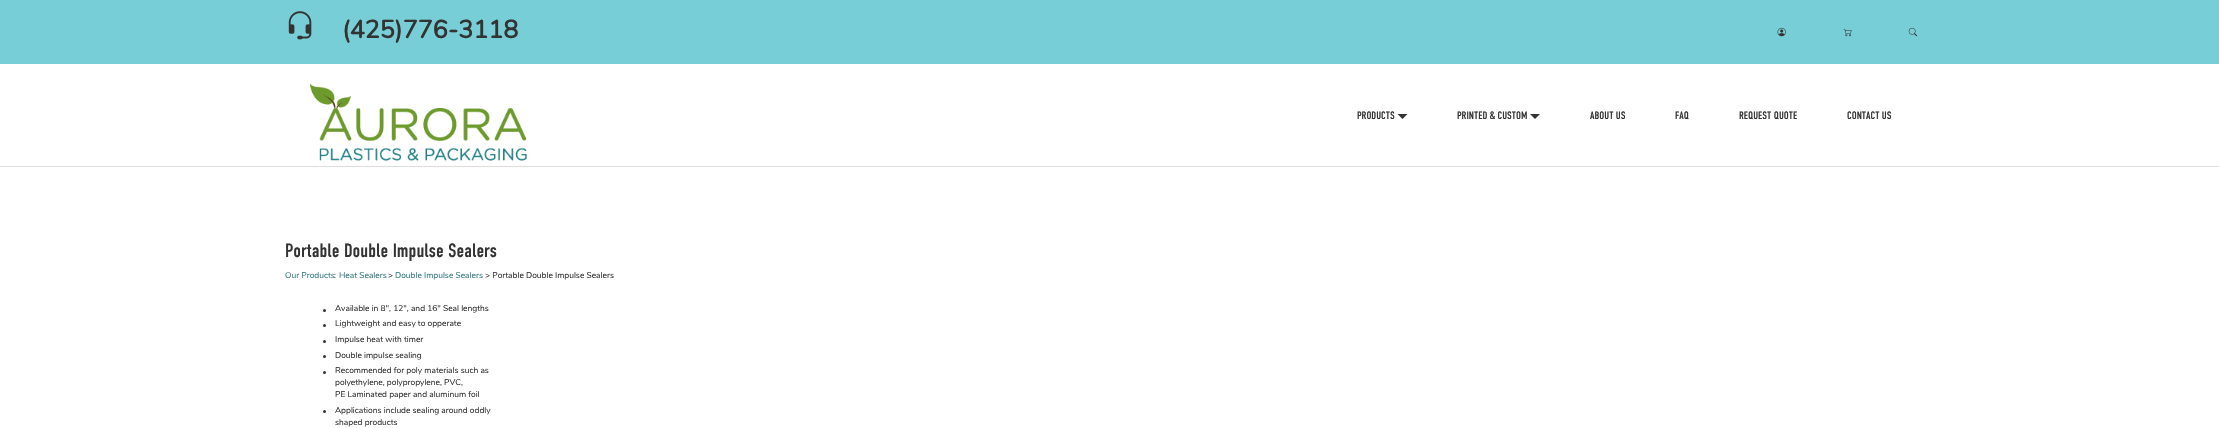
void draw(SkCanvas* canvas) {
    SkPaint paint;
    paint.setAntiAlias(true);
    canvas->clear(0xFFFFFFFF);
    paint.setColor(0xFF77CED7);
    canvas->drawRect(SkRect::MakeXYWH(0, 0, 2219, 64), paint);
    canvas->drawImageRect(SkImages::DeferredFromEncodedData(SkData::MakeFromFileName("img1.png")), SkRect::MakeXYWH(288, 11, 24, 29), SkSamplingOptions());
    SkFont font1(fontMgr->matchFamilyStyle("Nunito", SkFontStyle::Bold()), 25);
    font1.setSubpixel(true);
    paint.setColor(0xFF333333);
    canvas->drawString("(425)776-3118", 342, 38, font1, paint);
    canvas->drawImageRect(SkImages::DeferredFromEncodedData(SkData::MakeFromFileName("img2.png")), SkRect::MakeXYWH(1777, 27, 9, 10), SkSamplingOptions());
    canvas->drawImageRect(SkImages::DeferredFromEncodedData(SkData::MakeFromFileName("img3.png")), SkRect::MakeXYWH(1843, 28, 9, 9), SkSamplingOptions());
    canvas->drawImageRect(SkImages::DeferredFromEncodedData(SkData::MakeFromFileName("img4.png")), SkRect::MakeXYWH(1908, 27, 10, 10), SkSamplingOptions());
    paint.setColor(0xFFDDDDDD);
    canvas->drawRect(SkRect::MakeXYWH(0, 166, 2219, 1), paint);
    canvas->drawImageRect(SkImages::DeferredFromEncodedData(SkData::MakeFromFileName("img5.png")), SkRect::MakeXYWH(310, 83, 217, 78), SkSamplingOptions());
    SkFont font2(fontMgr->matchFamilyStyle("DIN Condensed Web", SkFontStyle::Normal()), 10.75f);
    font2.setSubpixel(true);
    paint.setColor(0xFF333333);
    canvas->drawString("PRODUCTS", 1357, 119, font2, paint);
    canvas->drawPath(SkPathBuilder().moveTo(1397.5f, 114).lineTo(1407.5f, 114).lineTo(1402.5f, 119).close().detach(), paint);
    canvas->drawString("PRINTED & CUSTOM", 1457, 119, font2, paint);
    canvas->drawPath(SkPathBuilder().moveTo(1530, 114).lineTo(1540, 114).lineTo(1535, 119).close().detach(), paint);
    canvas->drawString("ABOUT US", 1590, 119, font2, paint);
    canvas->drawString("FAQ", 1675, 119, font2, paint);
    canvas->drawString("REQUEST QUOTE", 1739, 119, font2, paint);
    canvas->drawString("CONTACT US", 1847, 119, font2, paint);
    SkFont font3(fontMgr->matchFamilyStyle("DIN Condensed Web", SkFontStyle::Normal()), 19.25f);
    font3.setSubpixel(true);
    canvas->drawString("Portable Double Impulse Sealers", 285, 257, font3, paint);
    SkFont font4(fontMgr->matchFamilyStyle("Nunito", SkFontStyle::Normal()), 8.4f);
    font4.setSubpixel(true);
    paint.setColor(0xFF357982);
    canvas->drawString("Our Products", 285, 278, font4, paint);
    canvas->drawString("Heat Sealers", 339, 278, font4, paint);
    canvas->drawString("Double Impulse Sealers", 395, 278, font4, paint);
    paint.setColor(0xFF333333);
    canvas->drawString("> Portable Double Impulse Sealers", 485, 278, font4, paint);
    canvas->drawString(":", 334, 278, font4, paint);
    canvas->drawString(">", 388, 278, font4, paint);
    canvas->drawCircle(324.5f, 310.5f, 1.5f, paint);
    canvas->drawString("Available in 8\", 12\", and 16\" Seal lengths", 335, 311, font4, paint);
    canvas->drawCircle(324.5f, 325.5f, 1.5f, paint);
    canvas->drawString("Lightweight and easy to opperate", 335, 326, font4, paint);
    canvas->drawCircle(324.5f, 341.5f, 1.5f, paint);
    canvas->drawString("Impulse heat with timer", 335, 342, font4, paint);
    canvas->drawCircle(324.5f, 356.5f, 1.5f, paint);
    canvas->drawString("Double impulse sealing", 335, 358, font4, paint);
    canvas->drawCircle(324.5f, 372.5f, 1.5f, paint);
    canvas->drawString("Recommended for poly materials such as", 335, 373, font4, paint);
    canvas->drawString("polyethylene, polypropylene, PVC,", 335, 385, font4, paint);
    canvas->drawString("PE Laminated paper and aluminum foil", 335, 397, font4, paint);
    canvas->drawCircle(324.5f, 411.5f, 1.5f, paint);
    canvas->drawString("Applications include sealing around oddly", 335, 413, font4, paint);
    canvas->drawString("shaped products", 335, 425, font4, paint);
}
